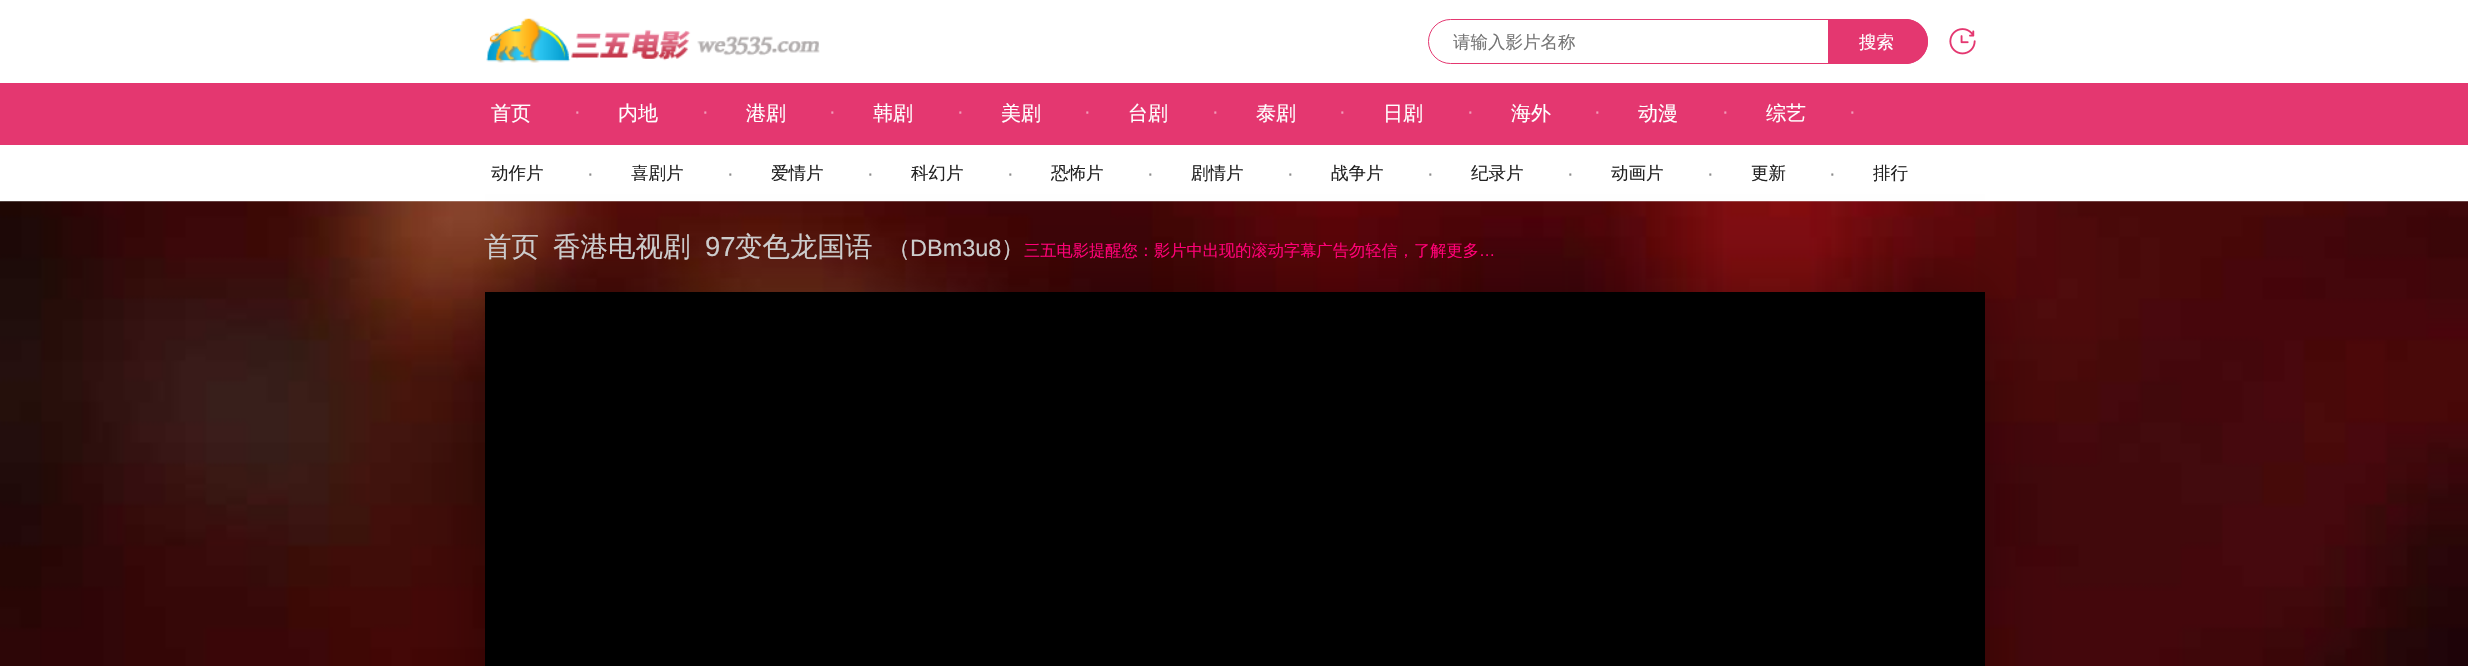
void draw(SkCanvas* canvas) {
    SkPaint paint;
    paint.setAntiAlias(true);
    canvas->clear(0xFFFFFFFF);
    paint.setColor(0x14000000);
    paint.setMaskFilter(SkMaskFilter::MakeBlur(kNormal_SkBlurStyle, 2));
    canvas->drawRect(SkRect::MakeXYWH(0, 1, 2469, 202), paint);
    paint.setMaskFilter(nullptr);
    paint.setColor(0xFFFFFFFF);
    canvas->drawRect(SkRect::MakeXYWH(0, 0, 2468, 201), paint);
    canvas->drawImageRect(SkImages::DeferredFromEncodedData(SkData::MakeFromFileName("img1.png")), SkRect::MakeXYWH(486, 18, 334, 45), SkSamplingOptions());
    paint.setStyle(SkPaint::kStroke_Style);
    paint.setStrokeWidth(1);
    paint.setColor(0xFFE43770);
    canvas->drawRoundRect(SkRect::MakeXYWH(1428.5f, 19.5f, 499, 44), 22, 22, paint);
    SkFont font1(fontMgr->matchFamilyStyle("WenQuanYi Zen Hei", SkFontStyle(500, SkFontStyle::kNormal_Width, SkFontStyle::kUpright_Slant)), 17.5f);
    font1.setSubpixel(true);
    paint.setStyle(SkPaint::kFill_Style);
    paint.setColor(0xFF757575);
    canvas->drawString("请输入影片名称", 1453, 48, font1, paint);
    paint.setColor(0xFFE43770);
    canvas->drawPath(SkPathBuilder().moveTo(1828, 19).lineTo(1905.5f, 19).cubicTo(1918, 19, 1928, 29, 1928, 41.5f).cubicTo(1928, 54, 1918, 64, 1905.5f, 64).lineTo(1828, 64).close().detach(), paint);
    paint.setColor(0xFFFFFFFF);
    canvas->drawString("搜索", 1859, 48, font1, paint);
    canvas->drawImageRect(SkImages::DeferredFromEncodedData(SkData::MakeFromFileName("img2.png")), SkRect::MakeXYWH(1949, 28, 27, 27), SkSamplingOptions());
    paint.setColor(0xFFE43770);
    canvas->drawRect(SkRect::MakeXYWH(0, 83, 2468, 62), paint);
    SkFont font2(fontMgr->matchFamilyStyle("WenQuanYi Zen Hei", SkFontStyle(500, SkFontStyle::kNormal_Width, SkFontStyle::kUpright_Slant)), 20);
    font2.setSubpixel(true);
    paint.setColor(0xFFFFFFFF);
    canvas->drawString("首页", 491, 120, font2, paint);
    SkFont font3(fontMgr->matchFamilyStyle("Liberation Sans", SkFontStyle::Normal()), 20);
    font3.setSubpixel(true);
    paint.setColor(0xFFF29BB8);
    canvas->drawString("·", 574, 118, font3, paint);
    paint.setColor(0xFFFFFFFF);
    canvas->drawString("内地", 618, 120, font2, paint);
    paint.setColor(0xFFF29BB8);
    canvas->drawString("·", 702, 118, font3, paint);
    paint.setColor(0xFFFFFFFF);
    canvas->drawString("港剧", 746, 120, font2, paint);
    paint.setColor(0xFFF29BB8);
    canvas->drawString("·", 829, 118, font3, paint);
    paint.setColor(0xFFFFFFFF);
    canvas->drawString("韩剧", 873, 120, font2, paint);
    paint.setColor(0xFFF29BB8);
    canvas->drawString("·", 957, 118, font3, paint);
    paint.setColor(0xFFFFFFFF);
    canvas->drawString("美剧", 1001, 120, font2, paint);
    paint.setColor(0xFFF29BB8);
    canvas->drawString("·", 1084, 118, font3, paint);
    paint.setColor(0xFFFFFFFF);
    canvas->drawString("台剧", 1128, 120, font2, paint);
    paint.setColor(0xFFF29BB8);
    canvas->drawString("·", 1212, 118, font3, paint);
    paint.setColor(0xFFFFFFFF);
    canvas->drawString("泰剧", 1256, 120, font2, paint);
    paint.setColor(0xFFF29BB8);
    canvas->drawString("·", 1339, 118, font3, paint);
    paint.setColor(0xFFFFFFFF);
    canvas->drawString("日剧", 1383, 120, font2, paint);
    paint.setColor(0xFFF29BB8);
    canvas->drawString("·", 1467, 118, font3, paint);
    paint.setColor(0xFFFFFFFF);
    canvas->drawString("海外", 1511, 120, font2, paint);
    paint.setColor(0xFFF29BB8);
    canvas->drawString("·", 1594, 118, font3, paint);
    paint.setColor(0xFFFFFFFF);
    canvas->drawString("动漫", 1638, 120, font2, paint);
    paint.setColor(0xFFF29BB8);
    canvas->drawString("·", 1722, 118, font3, paint);
    paint.setColor(0xFFFFFFFF);
    canvas->drawString("综艺", 1766, 120, font2, paint);
    paint.setColor(0xFFF29BB8);
    canvas->drawString("·", 1849, 118, font3, paint);
    paint.setColor(0xFF222222);
    canvas->drawString("动作片", 491, 179, font1, paint);
    paint.setColor(0xFF8C8C8C);
    canvas->drawString("·", 587, 180, font3, paint);
    paint.setColor(0xFF222222);
    canvas->drawString("喜剧片", 631, 179, font1, paint);
    paint.setColor(0xFF8C8C8C);
    canvas->drawString("·", 727, 180, font3, paint);
    paint.setColor(0xFF222222);
    canvas->drawString("爱情片", 771, 179, font1, paint);
    paint.setColor(0xFF8C8C8C);
    canvas->drawString("·", 867, 180, font3, paint);
    paint.setColor(0xFF222222);
    canvas->drawString("科幻片", 911, 179, font1, paint);
    paint.setColor(0xFF8C8C8C);
    canvas->drawString("·", 1007, 180, font3, paint);
    paint.setColor(0xFF222222);
    canvas->drawString("恐怖片", 1051, 179, font1, paint);
    paint.setColor(0xFF8C8C8C);
    canvas->drawString("·", 1147, 180, font3, paint);
    paint.setColor(0xFF222222);
    canvas->drawString("剧情片", 1191, 179, font1, paint);
    paint.setColor(0xFF8C8C8C);
    canvas->drawString("·", 1287, 180, font3, paint);
    paint.setColor(0xFF222222);
    canvas->drawString("战争片", 1331, 179, font1, paint);
    paint.setColor(0xFF8C8C8C);
    canvas->drawString("·", 1427, 180, font3, paint);
    paint.setColor(0xFF222222);
    canvas->drawString("纪录片", 1471, 179, font1, paint);
    paint.setColor(0xFF8C8C8C);
    canvas->drawString("·", 1567, 180, font3, paint);
    paint.setColor(0xFF222222);
    canvas->drawString("动画片", 1611, 179, font1, paint);
    paint.setColor(0xFF8C8C8C);
    canvas->drawString("·", 1707, 180, font3, paint);
    paint.setColor(0xFF222222);
    canvas->drawString("更新", 1751, 179, font1, paint);
    paint.setColor(0xFF8C8C8C);
    canvas->drawString("·", 1829, 180, font3, paint);
    paint.setColor(0xFF222222);
    canvas->drawString("排行", 1873, 179, font1, paint);
    canvas->drawImageRect(SkImages::DeferredFromEncodedData(SkData::MakeFromFileName("img3.png")), SkRect::MakeXYWH(0, 201, 2468, 465), SkSamplingOptions());
    paint.setColor(0x4D000000);
    paint.setMaskFilter(SkMaskFilter::MakeBlur(kNormal_SkBlurStyle, 31));
    canvas->drawRect(SkRect::MakeXYWH(485, 286, 1500, 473), paint);
    paint.setMaskFilter(nullptr);
    paint.setColor(0xFF000000);
    canvas->drawRect(SkRect::MakeXYWH(485, 292, 1500, 374), paint);
    SkFont font4(fontMgr->matchFamilyStyle("WenQuanYi Zen Hei", SkFontStyle(500, SkFontStyle::kNormal_Width, SkFontStyle::kUpright_Slant)), 27.5f);
    font4.setSubpixel(true);
    paint.setColor(0xFFCCCCCC);
    canvas->drawString("首页", 484, 256, font4, paint);
    canvas->drawString("香港电视剧", 553, 256, font4, paint);
    SkFont font5(fontMgr->matchFamilyStyle("Liberation Sans", SkFontStyle::Normal()), 27.5f);
    font5.setSubpixel(true);
    canvas->drawString("97", 705, 256, font5, paint);
    canvas->drawString("变色龙国语", 735, 256, font4, paint);
    SkFont font6(fontMgr->matchFamilyStyle("WenQuanYi Zen Hei", SkFontStyle(500, SkFontStyle::kNormal_Width, SkFontStyle::kUpright_Slant)), 23.5f);
    font6.setSubpixel(true);
    canvas->drawString("（", 887, 256, font6, paint);
    SkFont font7(fontMgr->matchFamilyStyle("Liberation Sans", SkFontStyle::Normal()), 23.5f);
    font7.setSubpixel(true);
    canvas->drawString("DBm3u8", 910, 256, font7, paint);
    canvas->drawString("）", 1001, 256, font6, paint);
    SkFont font8(fontMgr->matchFamilyStyle("WenQuanYi Zen Hei", SkFontStyle(500, SkFontStyle::kNormal_Width, SkFontStyle::kUpright_Slant)), 16.25f);
    font8.setSubpixel(true);
    paint.setColor(0xFFFF0076);
    canvas->drawString("三五电影提醒您：影片中出现的滚动字幕广告勿轻信，了解更多", 1024, 256, font8, paint);
    SkFont font9(fontMgr->matchFamilyStyle("Liberation Sans", SkFontStyle::Normal()), 16.25f);
    font9.setSubpixel(true);
    canvas->drawString("…", 1479, 256, font9, paint);
}
